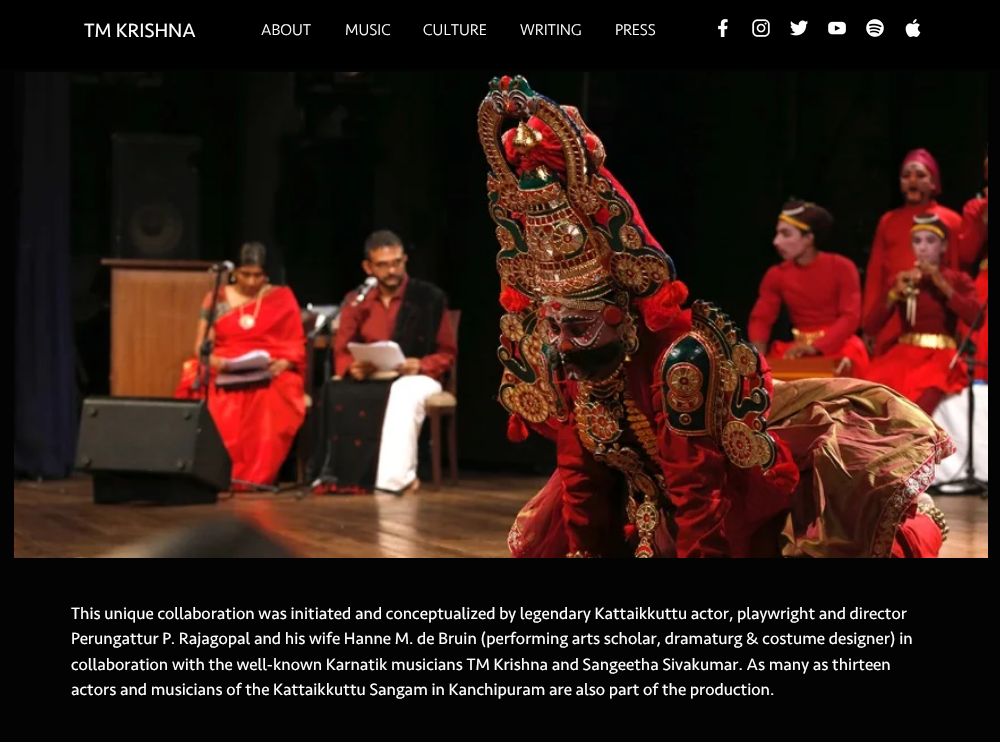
void draw(SkCanvas* canvas) {
    SkPaint paint;
    paint.setAntiAlias(true);
    canvas->clear(0xFF030303);
    paint.setColor(0xFF000000);
    canvas->drawRect(SkRect::MakeXYWH(0, 0, 1000, 69), paint);
    SkFont font1(fontMgr->matchFamilyStyle("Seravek", SkFontStyle::Normal()), 20);
    font1.setSubpixel(true);
    paint.setColor(0xFFFFFFFF);
    canvas->drawString("TM KRISHNA", 84, 37, font1, paint);
    SkFont font2(fontMgr->matchFamilyStyle("Seravek", SkFontStyle(300, SkFontStyle::kNormal_Width, SkFontStyle::kUpright_Slant)), 16);
    font2.setSubpixel(true);
    canvas->drawString("ABOUT", 261, 35, font2, paint);
    canvas->drawString("MUSIC", 345, 35, font2, paint);
    canvas->drawString("CULTURE", 423, 35, font2, paint);
    canvas->drawString("WRITING", 520, 35, font2, paint);
    canvas->drawString("PRESS", 615, 35, font2, paint);
    canvas->drawImageRect(SkImages::DeferredFromEncodedData(SkData::MakeFromFileName("img1.png")), SkRect::MakeXYWH(717, 19, 11, 18), SkSamplingOptions());
    canvas->drawImageRect(SkImages::DeferredFromEncodedData(SkData::MakeFromFileName("img2.png")), SkRect::MakeXYWH(752, 19, 18, 18), SkSamplingOptions());
    canvas->drawImageRect(SkImages::DeferredFromEncodedData(SkData::MakeFromFileName("img3.png")), SkRect::MakeXYWH(790, 20, 18, 16), SkSamplingOptions());
    canvas->drawImageRect(SkImages::DeferredFromEncodedData(SkData::MakeFromFileName("img4.png")), SkRect::MakeXYWH(828, 21, 18, 14), SkSamplingOptions());
    canvas->drawImageRect(SkImages::DeferredFromEncodedData(SkData::MakeFromFileName("img5.png")), SkRect::MakeXYWH(866, 19, 18, 18), SkSamplingOptions());
    canvas->drawImageRect(SkImages::DeferredFromEncodedData(SkData::MakeFromFileName("img6.png")), SkRect::MakeXYWH(905, 19, 16, 18), SkSamplingOptions());
    canvas->drawImageRect(SkImages::DeferredFromEncodedData(SkData::MakeFromFileName("img7.png")), SkRect::MakeXYWH(14, 72, 974, 486), SkSamplingOptions());
    SkFont font3(fontMgr->matchFamilyStyle("Seravek", SkFontStyle::Normal()), 17);
    font3.setSubpixel(true);
    canvas->drawString("This unique collaboration was initiated and conceptualized by legendary Kattaikkuttu actor, playwright and director", 71, 619, font3, paint);
    canvas->drawString("Perungattur P. Rajagopal and his wife Hanne M. de Bruin (performing arts scholar, dramaturg & costume designer) in", 71, 644, font3, paint);
    canvas->drawString("collaboration with the well-known Karnatik musicians TM Krishna and Sangeetha Sivakumar. As many as thirteen", 71, 670, font3, paint);
    canvas->drawString("actors and musicians of the Kattaikkuttu Sangam in Kanchipuram are also part of the production.", 71, 695, font3, paint);
}
